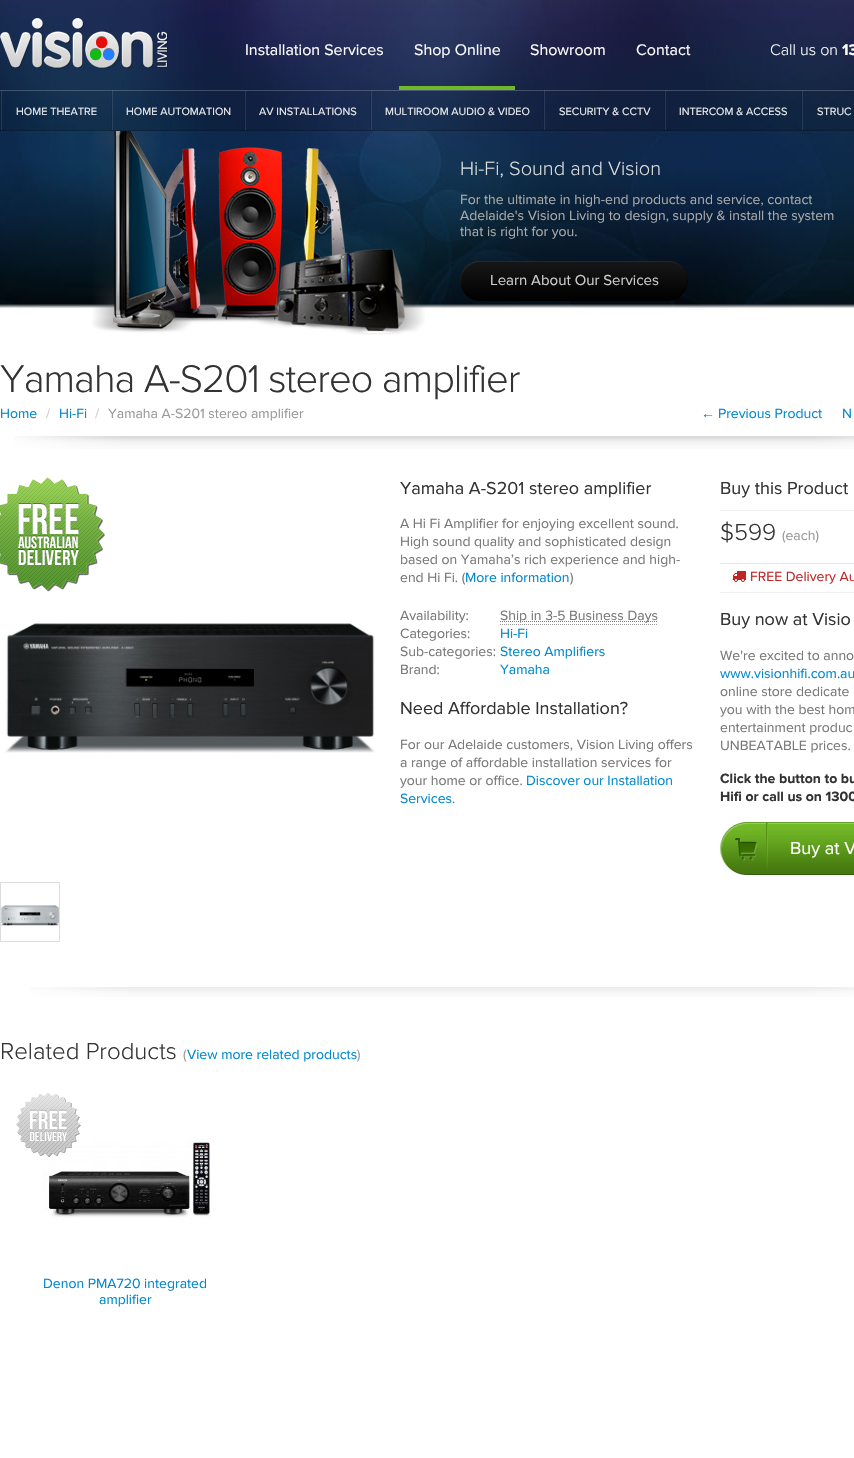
void draw(SkCanvas* canvas) {
    SkPaint paint;
    paint.setAntiAlias(true);
    auto spacedText = [&](const char* s, float x, float y, const SkFont& font, const SkPaint& ink, float letter, float word) {
        std::vector<SkGlyphID> glyphs(font.countText(s, strlen(s), SkTextEncoding::kUTF8));
        std::vector<float> xs(glyphs.size());
        font.textToGlyphs(s, strlen(s), SkTextEncoding::kUTF8, glyphs);
        font.getXPos(glyphs, xs, x);
        float extra = 0;
        for (size_t i = 0; i < glyphs.size(); i++) {
            xs[i] += extra;
            extra += letter + word * (glyphs[i] == font.unicharToGlyph(' '));
        }
        canvas->drawTextBlob(SkTextBlob::MakeFromPosHGlyphs(glyphs, xs, y, font), 0, 0, ink);
    };
    canvas->clear(0xFFFFFFFF);
    canvas->drawImageRect(SkImages::DeferredFromEncodedData(SkData::MakeFromFileName("img1.png")), SkRect::MakeXYWH(0, 0, 854, 312), SkSamplingOptions());
    canvas->drawImageRect(SkImages::DeferredFromEncodedData(SkData::MakeFromFileName("img2.png")), SkRect::MakeXYWH(0, 18, 168, 51), SkSamplingOptions());
    SkFont font1(fontMgr->matchFamilyStyle("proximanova", SkFontStyle::Normal()), 16);
    font1.setSubpixel(true);
    paint.setColor(0xFFFFFFFF);
    canvas->drawString("Installation Services", 245, 55, font1, paint);
    paint.setColor(0xFF6FB82B);
    canvas->drawRect(SkRect::MakeXYWH(399, 86, 116, 4), paint);
    paint.setColor(0xFFFFFFFF);
    canvas->drawString("Shop Online", 414, 55, font1, paint);
    canvas->drawString("Showroom", 530, 55, font1, paint);
    canvas->drawString("Contact", 636, 55, font1, paint);
    SkFont font2(fontMgr->matchFamilyStyle("proximanova", SkFontStyle(300, SkFontStyle::kNormal_Width, SkFontStyle::kUpright_Slant)), 16);
    font2.setSubpixel(true);
    canvas->drawString("Call us on", 770, 55, font2, paint);
    SkFont font3(fontMgr->matchFamilyStyle("proximanova", SkFontStyle::Bold()), 16);
    font3.setSubpixel(true);
    canvas->drawString("13", 842, 55, font3, paint);
    paint.setColor(0x33FFFFFF);
    canvas->drawRect(SkRect::MakeXYWH(0, 90, 854, 1), paint);
    paint.setColor(0x33000000);
    canvas->drawRect(SkRect::MakeXYWH(0, 130, 854, 1), paint);
    paint.setColor(0x1A000000);
    canvas->drawRect(SkRect::MakeXYWH(0, 90, 1, 41), paint);
    canvas->drawRect(SkRect::MakeXYWH(111, 90, 1, 40), paint);
    paint.setColor(0x1AFFFFFF);
    canvas->drawRect(SkRect::MakeXYWH(1, 90, 1, 40), paint);
    SkFont font4(fontMgr->matchFamilyStyle("proximanova", SkFontStyle::Normal()), 11);
    font4.setSubpixel(true);
    paint.setColor(0xFFEEEEEE);
    canvas->drawString("HOME THEATRE", 16, 115, font4, paint);
    paint.setColor(0x1A000000);
    canvas->drawRect(SkRect::MakeXYWH(244, 90, 1, 40), paint);
    paint.setColor(0x1AFFFFFF);
    canvas->drawRect(SkRect::MakeXYWH(112, 90, 1, 40), paint);
    paint.setColor(0xFFEEEEEE);
    canvas->drawString("HOME AUTOMATION", 126, 115, font4, paint);
    paint.setColor(0x1A000000);
    canvas->drawRect(SkRect::MakeXYWH(370, 90, 1, 40), paint);
    paint.setColor(0x1AFFFFFF);
    canvas->drawRect(SkRect::MakeXYWH(245, 90, 1, 40), paint);
    paint.setColor(0xFFEEEEEE);
    canvas->drawString("AV INSTALLATIONS", 259, 115, font4, paint);
    paint.setColor(0x1A000000);
    canvas->drawRect(SkRect::MakeXYWH(543, 90, 1, 40), paint);
    paint.setColor(0x1AFFFFFF);
    canvas->drawRect(SkRect::MakeXYWH(371, 90, 1, 40), paint);
    paint.setColor(0xFFEEEEEE);
    canvas->drawString("MULTIROOM AUDIO & VIDEO", 385, 115, font4, paint);
    paint.setColor(0x1A000000);
    canvas->drawRect(SkRect::MakeXYWH(664, 90, 1, 40), paint);
    paint.setColor(0x1AFFFFFF);
    canvas->drawRect(SkRect::MakeXYWH(544, 90, 1, 40), paint);
    paint.setColor(0xFFEEEEEE);
    canvas->drawString("SECURITY & CCTV", 559, 115, font4, paint);
    paint.setColor(0x1A000000);
    canvas->drawRect(SkRect::MakeXYWH(801, 90, 1, 40), paint);
    paint.setColor(0x1AFFFFFF);
    canvas->drawRect(SkRect::MakeXYWH(665, 90, 1, 40), paint);
    paint.setColor(0xFFEEEEEE);
    canvas->drawString("INTERCOM & ACCESS", 679, 115, font4, paint);
    paint.setColor(0x1AFFFFFF);
    canvas->drawRect(SkRect::MakeXYWH(802, 90, 1, 40), paint);
    paint.setColor(0xFFEEEEEE);
    canvas->drawString("STRUC", 817, 115, font4, paint);
    canvas->drawImageRect(SkImages::DeferredFromEncodedData(SkData::MakeFromFileName("img3.png")), SkRect::MakeXYWH(92, 131, 333, 204), SkSamplingOptions());
    SkFont font5(fontMgr->matchFamilyStyle("proximanova", SkFontStyle(300, SkFontStyle::kNormal_Width, SkFontStyle::kUpright_Slant)), 20);
    font5.setSubpixel(true);
    paint.setColor(0xFFDDDDDD);
    canvas->drawString("Hi-Fi, Sound and Vision", 460, 175, font5, paint);
    SkFont font6(fontMgr->matchFamilyStyle("proximanova", SkFontStyle::Normal()), 14);
    font6.setSubpixel(true);
    paint.setColor(0xFFAAAAAA);
    canvas->drawString("For the ultimate in high-end products and service, contact", 460, 204, font6, paint);
    canvas->drawString("Adelaide's Vision Living to design, supply & install the system", 460, 220, font6, paint);
    canvas->drawString("that is right for you.", 460, 236, font6, paint);
    canvas->drawImageRect(SkImages::DeferredFromEncodedData(SkData::MakeFromFileName("img4.png")), SkRect::MakeXYWH(460, 261, 30, 40), SkSamplingOptions());
    canvas->drawImageRect(SkImages::DeferredFromEncodedData(SkData::MakeFromFileName("img5.png")), SkRect::MakeXYWH(490, 261, 198, 40), SkSamplingOptions());
    SkFont font7(fontMgr->matchFamilyStyle("proximanova", SkFontStyle::Normal()), 15);
    font7.setSubpixel(true);
    paint.setColor(0xFFCCCCCC);
    canvas->drawString("Learn About Our Services", 490, 285, font7, paint);
    canvas->drawImageRect(SkImages::DeferredFromEncodedData(SkData::MakeFromFileName("img6.png")), SkRect::MakeXYWH(14, 436, 840, 13), SkSamplingOptions());
    SkFont font8(fontMgr->matchFamilyStyle("proximanova", SkFontStyle(300, SkFontStyle::kNormal_Width, SkFontStyle::kUpright_Slant)), 40);
    font8.setSubpixel(true);
    paint.setColor(0xFF333333);
    spacedText("Yamaha A-S201 stereo amplifier", 0, 392, font8, paint, -1, 0);
    paint.setColor(0xFF0088CC);
    canvas->drawString("Home", 0, 418, font6, paint);
    paint.setColor(0xFFCCCCCC);
    canvas->drawString("/", 46, 418, font6, paint);
    paint.setColor(0xFF0088CC);
    canvas->drawString("Hi-Fi", 59, 418, font6, paint);
    paint.setColor(0xFFCCCCCC);
    canvas->drawString("/", 95, 418, font6, paint);
    paint.setColor(0xFF999999);
    canvas->drawString("Yamaha A-S201 stereo amplifier", 108, 418, font6, paint);
    SkFont font9(fontMgr->matchFamilyStyle("Liberation Sans", SkFontStyle::Normal()), 14);
    font9.setSubpixel(true);
    paint.setColor(0xFF0088CC);
    canvas->drawString("←", 701, 418, font9, paint);
    canvas->drawString("Previous Product", 718, 418, font6, paint);
    canvas->drawString("N", 842, 418, font6, paint);
    canvas->drawImageRect(SkImages::DeferredFromEncodedData(SkData::MakeFromFileName("img7.png")), SkRect::MakeXYWH(0, 477, 105, 115), SkSamplingOptions());
    canvas->drawImageRect(SkImages::DeferredFromEncodedData(SkData::MakeFromFileName("img8.png")), SkRect::MakeXYWH(5, 623, 370, 130), SkSamplingOptions());
    canvas->drawImageRect(SkImages::DeferredFromEncodedData(SkData::MakeFromFileName("img9.png")), SkRect::MakeXYWH(1, 905, 58, 21), SkSamplingOptions());
    paint.setStyle(SkPaint::kStroke_Style);
    paint.setStrokeWidth(1);
    paint.setColor(0xFFDDDDDD);
    canvas->drawRect(SkRect::MakeXYWH(0.5f, 882.5f, 59, 59), paint);
    SkFont font10(fontMgr->matchFamilyStyle("proximanova", SkFontStyle::Normal()), 18);
    font10.setSubpixel(true);
    paint.setStyle(SkPaint::kFill_Style);
    paint.setColor(0xFF333333);
    canvas->drawString("Yamaha A-S201 stereo amplifier", 400, 494, font10, paint);
    paint.setColor(0xFF777777);
    canvas->drawString("A Hi Fi Amplifier for enjoying excellent sound.", 400, 528, font6, paint);
    canvas->drawString("High sound quality and sophisticated design", 400, 546, font6, paint);
    canvas->drawString("based on Yamaha’s rich experience and high-", 400, 564, font6, paint);
    canvas->drawString("end Hi Fi. (", 400, 582, font6, paint);
    paint.setColor(0xFF0088CC);
    canvas->drawString("More information", 465, 582, font6, paint);
    paint.setColor(0xFF777777);
    canvas->drawString(")", 570, 582, font6, paint);
    canvas->drawString("Availability:", 400, 620, font6, paint);
    paint.setStyle(SkPaint::kStroke_Style);
    paint.setPathEffect(SkDashPathEffect::Make({{1, 1}}, 0));
    canvas->drawPath(SkPathBuilder().moveTo(500, 621.5f).lineTo(658, 621.5f).detach(), paint);
    paint.setPathEffect(nullptr);
    paint.setStyle(SkPaint::kFill_Style);
    canvas->drawString("Ship in 3-5 Business Days", 500, 620, font6, paint);
    paint.setStyle(SkPaint::kStroke_Style);
    paint.setColor(0xFF999999);
    paint.setPathEffect(SkDashPathEffect::Make({{1, 1}}, 0));
    canvas->drawPath(SkPathBuilder().moveTo(500, 624.5f).lineTo(658, 624.5f).detach(), paint);
    paint.setPathEffect(nullptr);
    paint.setStyle(SkPaint::kFill_Style);
    paint.setColor(0xFF777777);
    canvas->drawString("Categories:", 400, 638, font6, paint);
    paint.setColor(0xFF0088CC);
    canvas->drawString("Hi-Fi", 500, 638, font6, paint);
    paint.setColor(0xFF777777);
    canvas->drawString("Sub-categories:", 400, 656, font6, paint);
    paint.setColor(0xFF0088CC);
    canvas->drawString("Stereo Amplifiers", 500, 656, font6, paint);
    paint.setColor(0xFF777777);
    canvas->drawString("Brand:", 400, 674, font6, paint);
    paint.setColor(0xFF0088CC);
    canvas->drawString("Yamaha", 500, 674, font6, paint);
    paint.setColor(0xFF333333);
    canvas->drawString("Need Affordable Installation?", 400, 714, font10, paint);
    paint.setColor(0xFF777777);
    canvas->drawString("For our Adelaide customers, Vision Living offers", 400, 749, font6, paint);
    canvas->drawString("a range of affordable installation services for", 400, 767, font6, paint);
    canvas->drawString("your home or office.", 400, 785, font6, paint);
    paint.setColor(0xFF0088CC);
    canvas->drawString("Discover our Installation", 526, 785, font6, paint);
    canvas->drawString("Services", 400, 803, font6, paint);
    paint.setColor(0xFF777777);
    canvas->drawString(".", 452, 803, font6, paint);
    paint.setColor(0xFF333333);
    canvas->drawString("Buy this Product", 720, 494, font10, paint);
    paint.setColor(0xFFEEEEEE);
    canvas->drawRect(SkRect::MakeXYWH(720, 510, 134, 1), paint);
    canvas->drawRect(SkRect::MakeXYWH(720, 592, 134, 1), paint);
    SkFont font11(fontMgr->matchFamilyStyle("proximanova", SkFontStyle(300, SkFontStyle::kNormal_Width, SkFontStyle::kUpright_Slant)), 24);
    font11.setSubpixel(true);
    paint.setColor(0xFF333333);
    canvas->drawString("$599", 720, 540, font11, paint);
    paint.setColor(0xFF999999);
    canvas->drawString("(each)", 782, 540, font6, paint);
    paint.setColor(0xFFE6E6E6);
    canvas->drawRect(SkRect::MakeXYWH(720, 563, 134, 1), paint);
    canvas->drawImageRect(SkImages::DeferredFromEncodedData(SkData::MakeFromFileName("img10.png")), SkRect::MakeXYWH(732, 571, 14, 11), SkSamplingOptions());
    paint.setColor(0xFFC02525);
    canvas->drawString("FREE Delivery Au", 750, 581, font6, paint);
    paint.setColor(0xFF333333);
    canvas->drawString("Buy now at Visio", 720, 625, font10, paint);
    paint.setColor(0xFF777777);
    canvas->drawString("We're excited to anno", 720, 660, font6, paint);
    paint.setColor(0xFF0088CC);
    canvas->drawString("www.visionhifi.com.au", 720, 678, font6, paint);
    paint.setColor(0xFF777777);
    canvas->drawString("online store dedicate", 720, 696, font6, paint);
    canvas->drawString("you with the best hom", 720, 714, font6, paint);
    canvas->drawString("entertainment produc", 720, 732, font6, paint);
    canvas->drawString("UNBEATABLE prices.", 720, 750, font6, paint);
    SkFont font12(fontMgr->matchFamilyStyle("proximanova", SkFontStyle::Bold()), 14);
    font12.setSubpixel(true);
    paint.setColor(0xFF333333);
    canvas->drawString("Click the button to bu", 720, 783, font12, paint);
    canvas->drawString("Hifi or call us on 1300", 720, 801, font12, paint);
    canvas->drawImageRect(SkImages::DeferredFromEncodedData(SkData::MakeFromFileName("img11.png")), SkRect::MakeXYWH(720, 822, 70, 53), SkSamplingOptions());
    canvas->drawImageRect(SkImages::DeferredFromEncodedData(SkData::MakeFromFileName("img12.png")), SkRect::MakeXYWH(790, 822, 64, 53), SkSamplingOptions());
    paint.setColor(0xFFFFFFFF);
    canvas->drawString("Buy at V", 790, 854, font10, paint);
    canvas->drawImageRect(SkImages::DeferredFromEncodedData(SkData::MakeFromFileName("img13.png")), SkRect::MakeXYWH(30, 987, 824, 10), SkSamplingOptions());
    paint.setColor(0xFF333333);
    canvas->drawString("Related Products", 0, 1059, font11, paint);
    paint.setColor(0xFF999999);
    canvas->drawString("(", 183, 1059, font6, paint);
    paint.setColor(0xFF0088CC);
    canvas->drawString("View more related products", 187, 1059, font6, paint);
    paint.setColor(0xFF999999);
    canvas->drawString(")", 357, 1059, font6, paint);
    canvas->drawImageRect(SkImages::DeferredFromEncodedData(SkData::MakeFromFileName("img15.png")), SkRect::MakeXYWH(43, 1139, 168, 80), SkSamplingOptions());
    canvas->drawImageRect(SkImages::DeferredFromEncodedData(SkData::MakeFromFileName("img14.png")), SkRect::MakeXYWH(16, 1092, 65, 65), SkSamplingOptions());
    paint.setColor(0xFF0088CC);
    canvas->drawString("Denon PMA720 integrated", 43, 1288, font6, paint);
    canvas->drawString("amplifier", 99, 1304, font6, paint);
}
